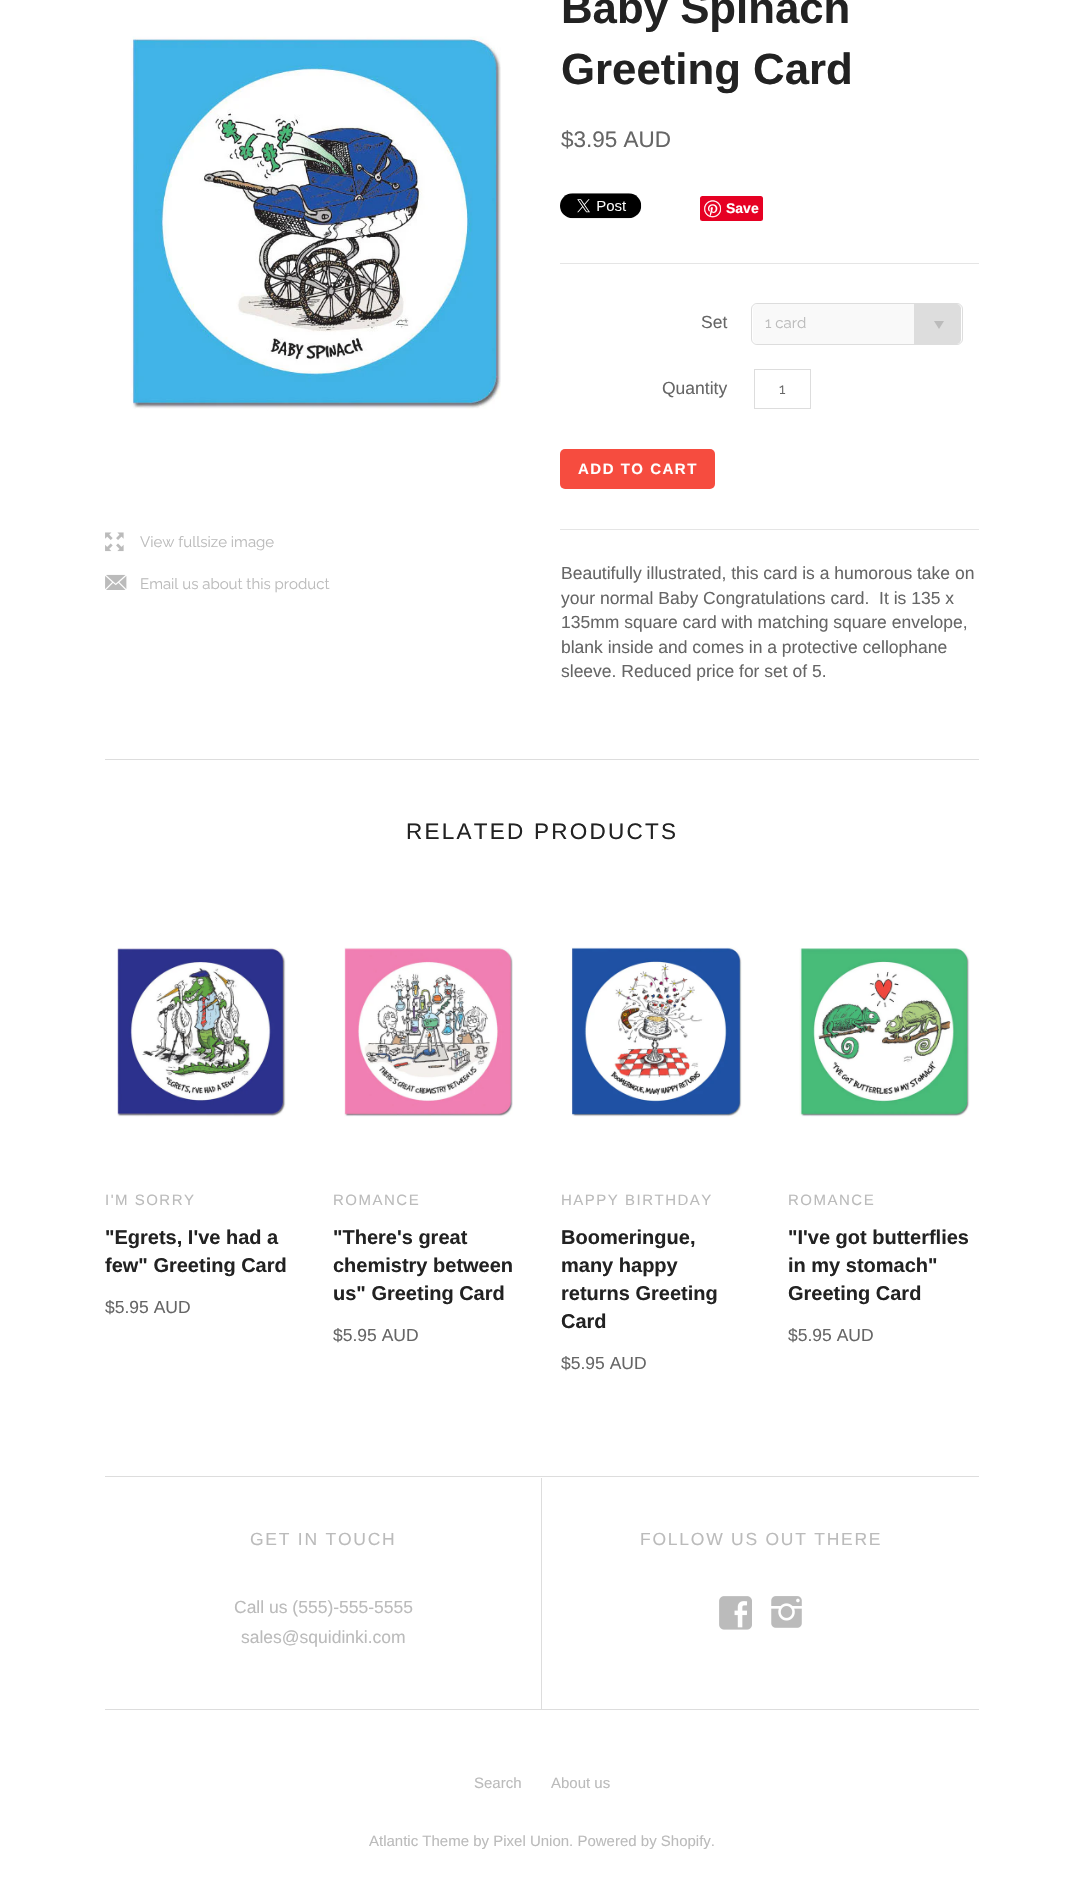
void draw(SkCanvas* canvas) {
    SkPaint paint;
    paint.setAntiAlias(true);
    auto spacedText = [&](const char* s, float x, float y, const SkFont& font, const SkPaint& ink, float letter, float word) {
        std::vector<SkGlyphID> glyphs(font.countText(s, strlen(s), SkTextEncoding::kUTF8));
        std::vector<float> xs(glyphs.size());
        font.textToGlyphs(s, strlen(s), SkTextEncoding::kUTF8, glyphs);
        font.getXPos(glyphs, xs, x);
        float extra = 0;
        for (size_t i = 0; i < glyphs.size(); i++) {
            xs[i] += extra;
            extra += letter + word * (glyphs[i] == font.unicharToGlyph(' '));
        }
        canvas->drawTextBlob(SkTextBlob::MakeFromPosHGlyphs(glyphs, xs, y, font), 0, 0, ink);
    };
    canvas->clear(0xFFFFFFFF);
    canvas->drawImageRect(SkImages::DeferredFromEncodedData(SkData::MakeFromFileName("img1.png")), SkRect::MakeXYWH(130, 36, 371, 373), SkSamplingOptions());
    canvas->drawImageRect(SkImages::DeferredFromEncodedData(SkData::MakeFromFileName("img2.png")), SkRect::MakeXYWH(105, 532, 19, 20), SkSamplingOptions());
    SkFont font1(fontMgr->matchFamilyStyle("Raleway", SkFontStyle::Normal()), 15);
    font1.setSubpixel(true);
    paint.setColor(0xFFBBBBBB);
    canvas->drawString("View fullsize image", 140, 547, font1, paint);
    canvas->drawImageRect(SkImages::DeferredFromEncodedData(SkData::MakeFromFileName("img3.png")), SkRect::MakeXYWH(105, 574, 22, 16), SkSamplingOptions());
    canvas->drawString("Email us about this product", 140, 589, font1, paint);
    SkFont font2(fontMgr->matchFamilyStyle("Liberation Sans", SkFontStyle::Bold()), 43.75f);
    font2.setSubpixel(true);
    paint.setColor(0xFF222222);
    canvas->drawString("Baby Spinach", 561, 23, font2, paint);
    canvas->drawString("Greeting Card", 561, 84, font2, paint);
    SkFont font3(fontMgr->matchFamilyStyle("Liberation Sans", SkFontStyle::Normal()), 22.5f);
    font3.setSubpixel(true);
    paint.setColor(0xFF666666);
    canvas->drawString("$3.95 AUD", 561, 147, font3, paint);
    canvas->drawImageRect(SkImages::DeferredFromEncodedData(SkData::MakeFromFileName("img4.png")), SkRect::MakeXYWH(560, 193, 82, 26), SkSamplingOptions());
    paint.setColor(0xFFE60023);
    canvas->drawRoundRect(SkRect::MakeXYWH(700, 196, 63, 25), 2.5f, 2.5f, paint);
    canvas->drawImageRect(SkImages::DeferredFromEncodedData(SkData::MakeFromFileName("img5.png")), SkRect::MakeXYWH(704, 200, 17, 18), SkSamplingOptions());
    SkFont font4(fontMgr->matchFamilyStyle("Liberation Sans", SkFontStyle::Bold()), 14);
    font4.setSubpixel(true);
    paint.setColor(0xFFFFFFFF);
    canvas->drawString("Save", 726, 213, font4, paint);
    paint.setColor(0xFFE5E5E5);
    canvas->drawRect(SkRect::MakeXYWH(560, 263, 419, 1), paint);
    SkFont font5(fontMgr->matchFamilyStyle("Liberation Sans", SkFontStyle::Normal()), 17.5f);
    font5.setSubpixel(true);
    paint.setColor(0xFF666666);
    canvas->drawString("Set", 701, 328, font5, paint);
    paint.setStyle(SkPaint::kStroke_Style);
    paint.setStrokeWidth(1);
    paint.setColor(0xFFDDDDDD);
    canvas->drawRoundRect(SkRect::MakeXYWH(751.5f, 303.5f, 211, 41), 5.5f, 5.5f, paint);
    paint.setStyle(SkPaint::kFill_Style);
    paint.setColor(0xFFF9F9F9);
    canvas->drawRoundRect(SkRect::MakeXYWH(753, 304, 208, 40), 5, 5, paint);
    paint.setColor(0xFFBBBBBB);
    canvas->drawString("1 card", 765, 328, font1, paint);
    paint.setColor(0xFFDDDDDD);
    canvas->drawPath(SkPathBuilder().moveTo(914, 304).lineTo(956, 304).cubicTo(959, 304, 961, 306, 961, 309).lineTo(961, 339).cubicTo(961, 342, 959, 344, 956, 344).lineTo(914, 344).close().detach(), paint);
    paint.setColor(0xFFBBBBBB);
    canvas->drawPath(SkPathBuilder().moveTo(934, 321).lineTo(944, 321).lineTo(939, 329).close().detach(), paint);
    paint.setColor(0xFF666666);
    canvas->drawString("Quantity", 662, 394, font5, paint);
    paint.setStyle(SkPaint::kStroke_Style);
    paint.setColor(0xFFDDDDDD);
    canvas->drawRect(SkRect::MakeXYWH(754.5f, 369.5f, 56, 39), paint);
    paint.setStyle(SkPaint::kFill_Style);
    paint.setColor(0xFF666666);
    canvas->drawString("1", 779, 394, font1, paint);
    paint.setColor(0xFFF64C3F);
    canvas->drawRoundRect(SkRect::MakeXYWH(560, 449, 155, 40), 5, 5, paint);
    SkFont font6(fontMgr->matchFamilyStyle("Liberation Sans", SkFontStyle::Bold()), 15);
    font6.setSubpixel(true);
    paint.setColor(0xFFFFFFFF);
    spacedText("ADD TO CART", 578, 474, font6, paint, 1.5f, 0);
    paint.setColor(0xFFE5E5E5);
    canvas->drawRect(SkRect::MakeXYWH(560, 529, 419, 1), paint);
    paint.setColor(0xFF666666);
    canvas->drawString("Beautifully illustrated, this card is a humorous take on", 561, 579, font5, paint);
    canvas->drawString("your normal Baby Congratulations card.  It is 135 x", 561, 604, font5, paint);
    canvas->drawString("135mm square card with matching square envelope,", 561, 628, font5, paint);
    canvas->drawString("blank inside and comes in a protective cellophane", 561, 653, font5, paint);
    canvas->drawString("sleeve. Reduced price for set of 5.", 561, 677, font5, paint);
    paint.setColor(0xFFDDDDDD);
    canvas->drawRect(SkRect::MakeXYWH(105, 759, 874, 1), paint);
    paint.setColor(0xFF222222);
    spacedText("RELATED PRODUCTS", 406, 839, font3, paint, 2.25f, 0);
    canvas->drawImageRect(SkImages::DeferredFromEncodedData(SkData::MakeFromFileName("img6.png")), SkRect::MakeXYWH(117, 947, 169, 170), SkSamplingOptions());
    SkFont font7(fontMgr->matchFamilyStyle("Liberation Sans", SkFontStyle::Normal()), 15);
    font7.setSubpixel(true);
    paint.setColor(0xFFBBBBBB);
    spacedText("I'M SORRY", 105, 1205, font7, paint, 1.5f, 0);
    SkFont font8(fontMgr->matchFamilyStyle("Liberation Sans", SkFontStyle::Bold()), 20);
    font8.setSubpixel(true);
    paint.setColor(0xFF222222);
    canvas->drawString("\"Egrets, I've had a", 105, 1244, font8, paint);
    canvas->drawString("few\" Greeting Card", 105, 1272, font8, paint);
    paint.setColor(0xFF666666);
    canvas->drawString("$5.95 AUD", 105, 1313, font5, paint);
    canvas->drawImageRect(SkImages::DeferredFromEncodedData(SkData::MakeFromFileName("img7.png")), SkRect::MakeXYWH(344, 947, 169, 170), SkSamplingOptions());
    paint.setColor(0xFFBBBBBB);
    spacedText("ROMANCE", 333, 1205, font7, paint, 1.5f, 0);
    paint.setColor(0xFF222222);
    canvas->drawString("\"There's great", 333, 1244, font8, paint);
    canvas->drawString("chemistry between", 333, 1272, font8, paint);
    canvas->drawString("us\" Greeting Card", 333, 1300, font8, paint);
    paint.setColor(0xFF666666);
    canvas->drawString("$5.95 AUD", 333, 1341, font5, paint);
    canvas->drawImageRect(SkImages::DeferredFromEncodedData(SkData::MakeFromFileName("img8.png")), SkRect::MakeXYWH(571, 947, 171, 170), SkSamplingOptions());
    paint.setColor(0xFFBBBBBB);
    spacedText("HAPPY BIRTHDAY", 561, 1205, font7, paint, 1.5f, 0);
    paint.setColor(0xFF222222);
    canvas->drawString("Boomeringue,", 561, 1244, font8, paint);
    canvas->drawString("many happy", 561, 1272, font8, paint);
    canvas->drawString("returns Greeting", 561, 1300, font8, paint);
    canvas->drawString("Card", 561, 1328, font8, paint);
    paint.setColor(0xFF666666);
    canvas->drawString("$5.95 AUD", 561, 1369, font5, paint);
    canvas->drawImageRect(SkImages::DeferredFromEncodedData(SkData::MakeFromFileName("img9.png")), SkRect::MakeXYWH(799, 948, 171, 169), SkSamplingOptions());
    paint.setColor(0xFFBBBBBB);
    spacedText("ROMANCE", 788, 1205, font7, paint, 1.5f, 0);
    paint.setColor(0xFF222222);
    canvas->drawString("\"I've got butterflies", 788, 1244, font8, paint);
    canvas->drawString("in my stomach\"", 788, 1272, font8, paint);
    canvas->drawString("Greeting Card", 788, 1300, font8, paint);
    paint.setColor(0xFF666666);
    canvas->drawString("$5.95 AUD", 788, 1341, font5, paint);
    paint.setColor(0xFFDDDDDD);
    canvas->drawRect(SkRect::MakeXYWH(105, 1476, 874, 1), paint);
    canvas->drawRect(SkRect::MakeXYWH(105, 1709, 874, 1), paint);
    paint.setColor(0xFFBBBBBB);
    spacedText("GET IN TOUCH", 250, 1545, font5, paint, 1.75f, 0);
    canvas->drawString("Call us (555)-555-5555", 234, 1613, font5, paint);
    canvas->drawString("sales@squidinki.com", 241, 1643, font5, paint);
    paint.setColor(0xFFDDDDDD);
    canvas->drawRect(SkRect::MakeXYWH(541, 1478, 1, 231), paint);
    paint.setColor(0xFFBBBBBB);
    spacedText("FOLLOW US OUT THERE", 640, 1545, font5, paint, 1.75f, 0);
    canvas->drawImageRect(SkImages::DeferredFromEncodedData(SkData::MakeFromFileName("img10.png")), SkRect::MakeXYWH(719, 1596, 33, 34), SkSamplingOptions());
    canvas->drawImageRect(SkImages::DeferredFromEncodedData(SkData::MakeFromFileName("img11.png")), SkRect::MakeXYWH(771, 1596, 31, 32), SkSamplingOptions());
    canvas->drawString("Search", 474, 1788, font7, paint);
    canvas->drawString("About us", 551, 1788, font7, paint);
    canvas->drawString("Atlantic Theme by Pixel Union. Powered by Shopify.", 369, 1846, font7, paint);
}
